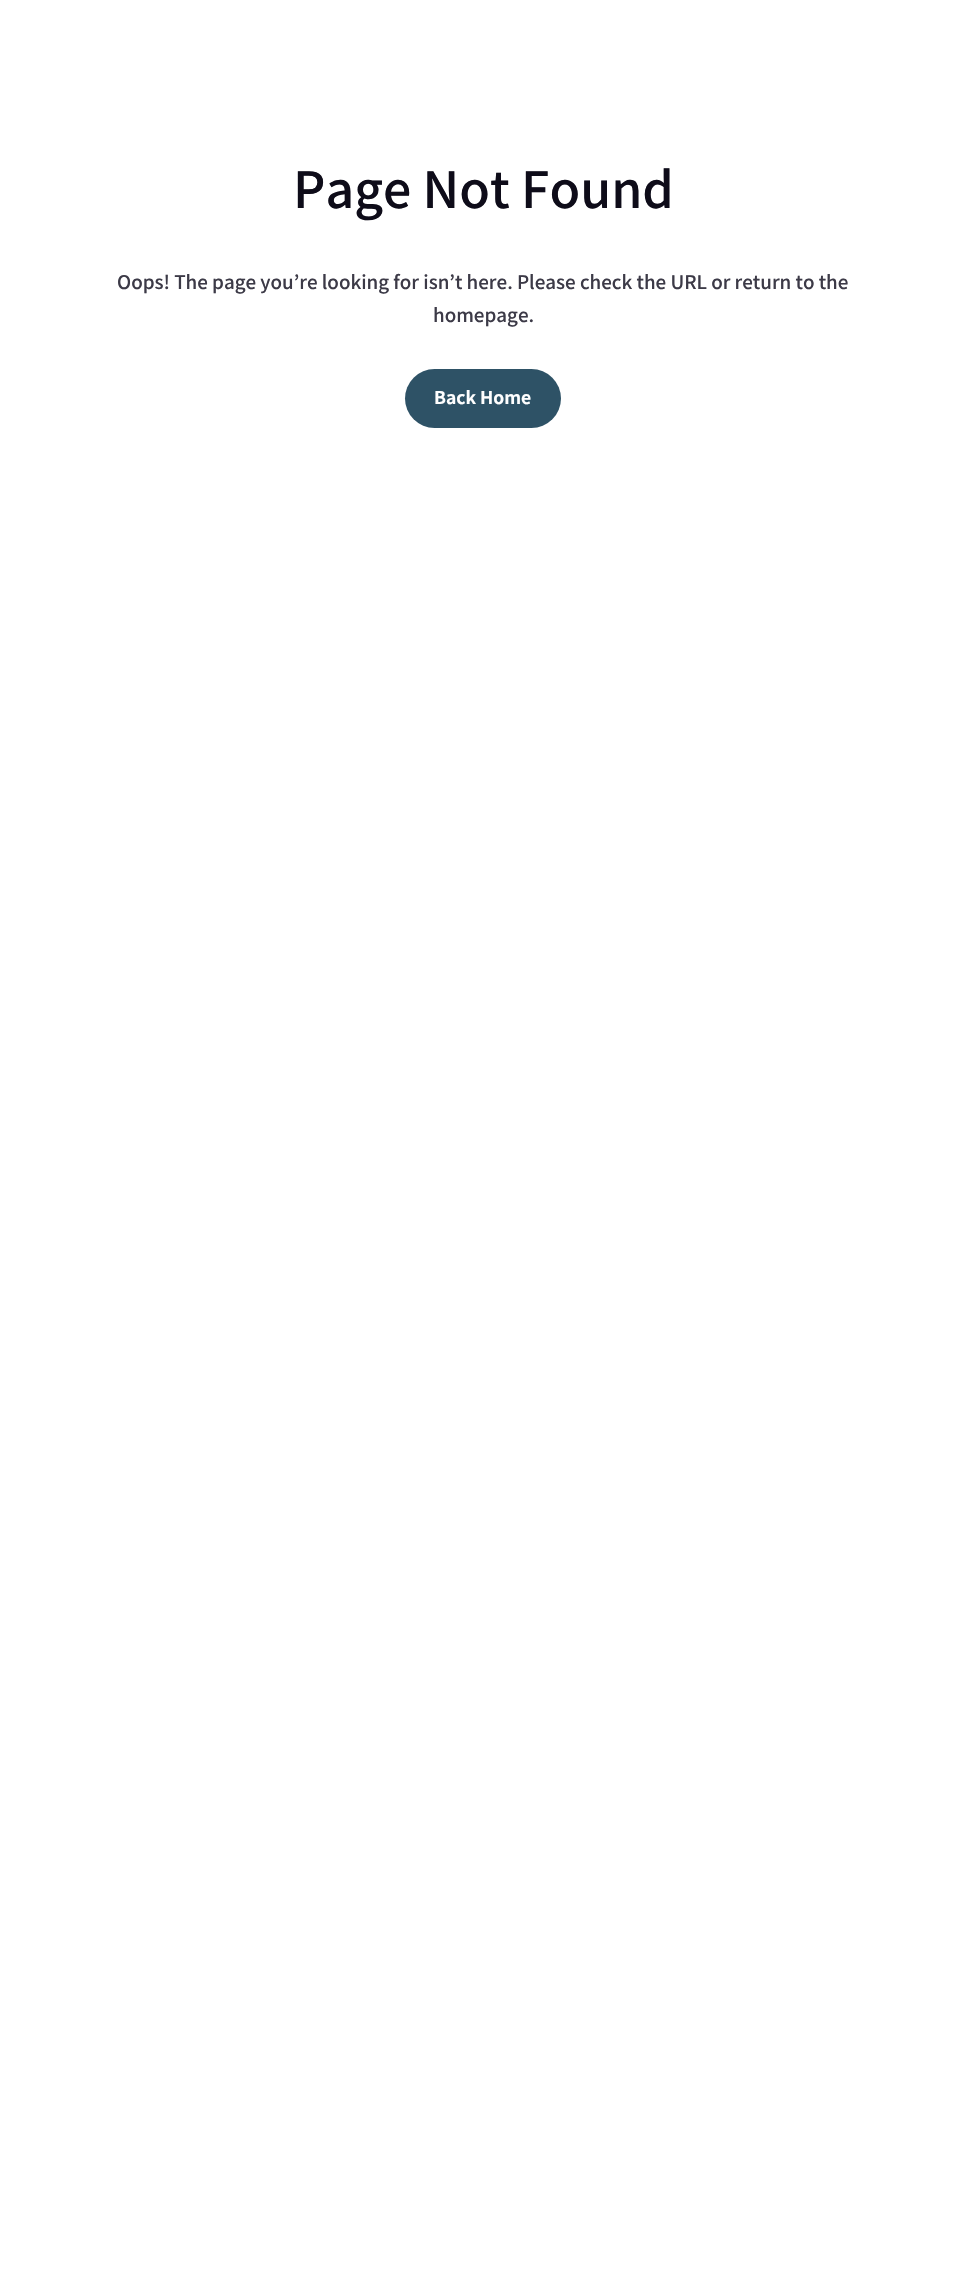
void draw(SkCanvas* canvas) {
    SkPaint paint;
    paint.setAntiAlias(true);
    canvas->clear(0xFFFFFFFF);
    SkFont font1(fontMgr->matchFamilyStyle("Noto Sans KR", SkFontStyle(500, SkFontStyle::kNormal_Width, SkFontStyle::kUpright_Slant)), 50);
    font1.setSubpixel(true);
    paint.setColor(0xFF0E0C19);
    canvas->drawString("Page Not Found", 293, 208, font1, paint);
    SkFont font2(fontMgr->matchFamilyStyle("Noto Sans KR", SkFontStyle(500, SkFontStyle::kNormal_Width, SkFontStyle::kUpright_Slant)), 18.75f);
    font2.setSubpixel(true);
    paint.setColor(0xFF3C3A47);
    canvas->drawString("Oops! The page you’re looking for isn’t here. Please check the URL or return to the", 117, 289, font2, paint);
    canvas->drawString("homepage.", 433, 322, font2, paint);
    paint.setColor(0xFF2E5266);
    canvas->drawRoundRect(SkRect::MakeXYWH(405, 369, 156, 59), 29.5f, 29.5f, paint);
    SkFont font3(fontMgr->matchFamilyStyle("Noto Sans KR", SkFontStyle::Bold()), 17.5f);
    font3.setSubpixel(true);
    paint.setColor(0xFFFFFFFF);
    canvas->drawString("Back Home", 434, 404, font3, paint);
}
